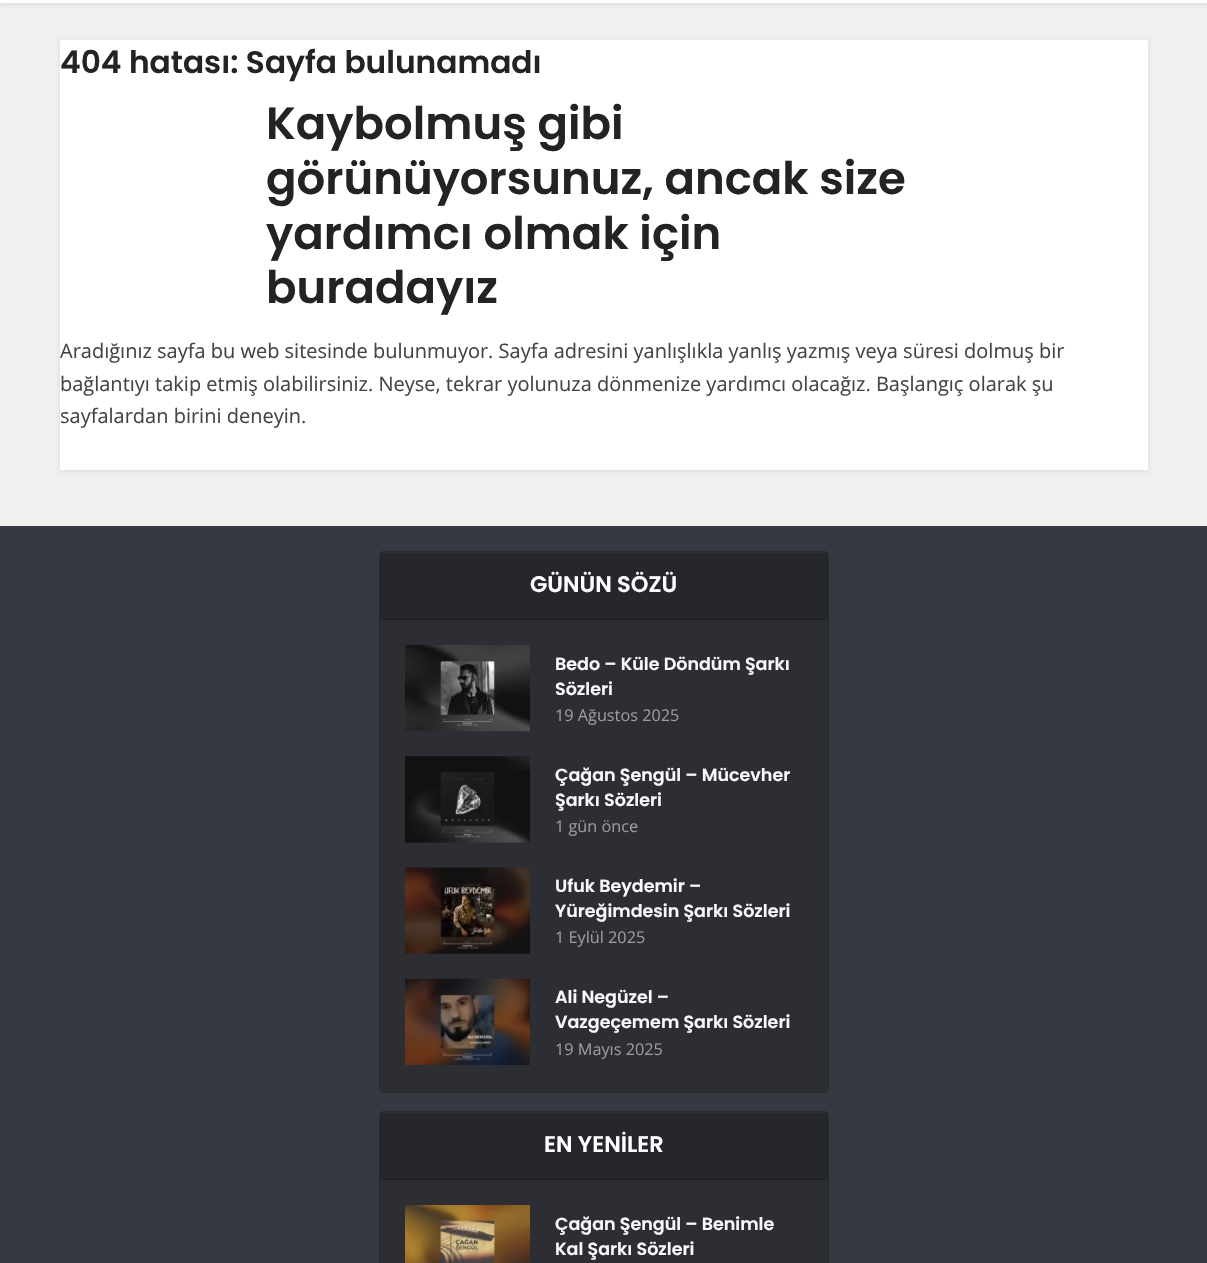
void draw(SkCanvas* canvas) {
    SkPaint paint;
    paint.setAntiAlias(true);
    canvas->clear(0xFFF0F0F0);
    paint.setColor(0x1A000000);
    paint.setMaskFilter(SkMaskFilter::MakeBlur(kNormal_SkBlurStyle, 2));
    canvas->drawRect(SkRect::MakeXYWH(0, -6, 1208, 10), paint);
    paint.setMaskFilter(nullptr);
    paint.setColor(0xFFFFFFFF);
    canvas->drawRect(SkRect::MakeXYWH(0, 0, 1207, 3), paint);
    paint.setColor(0x1A000000);
    paint.setMaskFilter(SkMaskFilter::MakeBlur(kNormal_SkBlurStyle, 2));
    canvas->drawRect(SkRect::MakeXYWH(60, 41, 1088, 430), paint);
    paint.setMaskFilter(nullptr);
    paint.setColor(0xFFFFFFFF);
    canvas->drawRect(SkRect::MakeXYWH(60, 40, 1088, 430), paint);
    SkFont font1(fontMgr->matchFamilyStyle("Poppins", SkFontStyle(600, SkFontStyle::kNormal_Width, SkFontStyle::kUpright_Slant)), 31.25f);
    font1.setSubpixel(true);
    paint.setColor(0xFF232323);
    canvas->drawString("404 hatası: Sayfa bulunamadı", 60, 73, font1, paint);
    SkFont font2(fontMgr->matchFamilyStyle("Poppins", SkFontStyle(600, SkFontStyle::kNormal_Width, SkFontStyle::kUpright_Slant)), 45);
    font2.setSubpixel(true);
    canvas->drawString("Kaybolmuş gibi", 266, 139, font2, paint);
    canvas->drawString("görünüyorsunuz, ancak size", 266, 194, font2, paint);
    canvas->drawString("yardımcı olmak için", 266, 249, font2, paint);
    canvas->drawString("buradayız", 266, 303, font2, paint);
    SkFont font3(fontMgr->matchFamilyStyle("Open Sans", SkFontStyle::Normal()), 20);
    font3.setSubpixel(true);
    paint.setColor(0xFF444444);
    canvas->drawString("Aradığınız sayfa bu web sitesinde bulunmuyor. Sayfa adresini yanlışlıkla yanlış yazmış veya süresi dolmuş bir", 60, 358, font3, paint);
    canvas->drawString("bağlantıyı takip etmiş olabilirsiniz. Neyse, tekrar yolunuza dönmenize yardımcı olacağız. Başlangıç olarak şu", 60, 391, font3, paint);
    canvas->drawString("sayfalardan birini deneyin.", 60, 423, font3, paint);
    paint.setColor(0xFF373941);
    canvas->drawRect(SkRect::MakeXYWH(0, 526, 1207, 737), paint);
    paint.setColor(0xFF2C2E34);
    canvas->drawRoundRect(SkRect::MakeXYWH(379, 551, 450, 542), 5, 5, paint);
    paint.setStyle(SkPaint::kStroke_Style);
    paint.setStrokeWidth(1);
    paint.setColor(0x1A000000);
    canvas->drawRoundRect(SkRect::MakeXYWH(379.5f, 551.5f, 449, 541), 4.5f, 4.5f, paint);
    paint.setStyle(SkPaint::kFill_Style);
    paint.setColor(0x26000000);
    canvas->drawRect(SkRect::MakeXYWH(380, 553, 448, 66), paint);
    paint.setColor(0xFF1E1F23);
    canvas->drawRect(SkRect::MakeXYWH(380, 619, 448, 1), paint);
    SkFont font4(fontMgr->matchFamilyStyle("Poppins", SkFontStyle(600, SkFontStyle::kNormal_Width, SkFontStyle::kUpright_Slant)), 22.5f);
    font4.setSubpixel(true);
    paint.setColor(0xFFFFFFFF);
    canvas->drawString("GÜNÜN SÖZÜ", 530, 592, font4, paint);
    canvas->drawImageRect(SkImages::DeferredFromEncodedData(SkData::MakeFromFileName("img1.png")), SkRect::MakeXYWH(405, 645, 125, 87), SkSamplingOptions());
    SkFont font5(fontMgr->matchFamilyStyle("Poppins", SkFontStyle(600, SkFontStyle::kNormal_Width, SkFontStyle::kUpright_Slant)), 17.5f);
    font5.setSubpixel(true);
    paint.setColor(0xFFF9F9F9);
    canvas->drawString("Bedo – Küle Döndüm Şarkı", 555, 670, font5, paint);
    canvas->drawString("Sözleri", 555, 695, font5, paint);
    SkFont font6(fontMgr->matchFamilyStyle("Open Sans", SkFontStyle::Normal()), 16.25f);
    font6.setSubpixel(true);
    paint.setColor(0xFF9B9B9B);
    canvas->drawString("19 Ağustos 2025", 555, 721, font6, paint);
    canvas->drawImageRect(SkImages::DeferredFromEncodedData(SkData::MakeFromFileName("img2.png")), SkRect::MakeXYWH(405, 756, 125, 87), SkSamplingOptions());
    paint.setColor(0xFFF9F9F9);
    canvas->drawString("Çağan Şengül – Mücevher", 555, 781, font5, paint);
    canvas->drawString("Şarkı Sözleri", 555, 806, font5, paint);
    paint.setColor(0xFF9B9B9B);
    canvas->drawString("1 gün önce", 555, 832, font6, paint);
    canvas->drawImageRect(SkImages::DeferredFromEncodedData(SkData::MakeFromFileName("img3.png")), SkRect::MakeXYWH(405, 867, 125, 87), SkSamplingOptions());
    paint.setColor(0xFFF9F9F9);
    canvas->drawString("Ufuk Beydemir –", 555, 892, font5, paint);
    canvas->drawString("Yüreğimdesin Şarkı Sözleri", 555, 917, font5, paint);
    paint.setColor(0xFF9B9B9B);
    canvas->drawString("1 Eylül 2025", 555, 943, font6, paint);
    canvas->drawImageRect(SkImages::DeferredFromEncodedData(SkData::MakeFromFileName("img4.png")), SkRect::MakeXYWH(405, 978, 125, 87), SkSamplingOptions());
    paint.setColor(0xFFF9F9F9);
    canvas->drawString("Ali Negüzel –", 555, 1003, font5, paint);
    canvas->drawString("Vazgeçemem Şarkı Sözleri", 555, 1028, font5, paint);
    paint.setColor(0xFF9B9B9B);
    canvas->drawString("19 Mayıs 2025", 555, 1055, font6, paint);
    paint.setColor(0xFF2C2E34);
    canvas->drawRoundRect(SkRect::MakeXYWH(379, 1111, 450, 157), 5, 5, paint);
    paint.setStyle(SkPaint::kStroke_Style);
    paint.setColor(0x1A000000);
    canvas->drawRoundRect(SkRect::MakeXYWH(379.5f, 1111.5f, 449, 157), 4.5f, 4.5f, paint);
    paint.setStyle(SkPaint::kFill_Style);
    paint.setColor(0x26000000);
    canvas->drawRect(SkRect::MakeXYWH(380, 1113, 448, 66), paint);
    paint.setColor(0xFF1E1F23);
    canvas->drawRect(SkRect::MakeXYWH(380, 1179, 448, 1), paint);
    paint.setColor(0xFFFFFFFF);
    canvas->drawString("EN YENİLER", 544, 1152, font4, paint);
    canvas->drawImageRect(SkImages::DeferredFromEncodedData(SkData::MakeFromFileName("img5.png")), SkRect::MakeXYWH(405, 1205, 125, 58), SkSamplingOptions());
    paint.setColor(0xFFF9F9F9);
    canvas->drawString("Çağan Şengül – Benimle", 555, 1230, font5, paint);
    canvas->drawString("Kal Şarkı Sözleri", 555, 1255, font5, paint);
}
